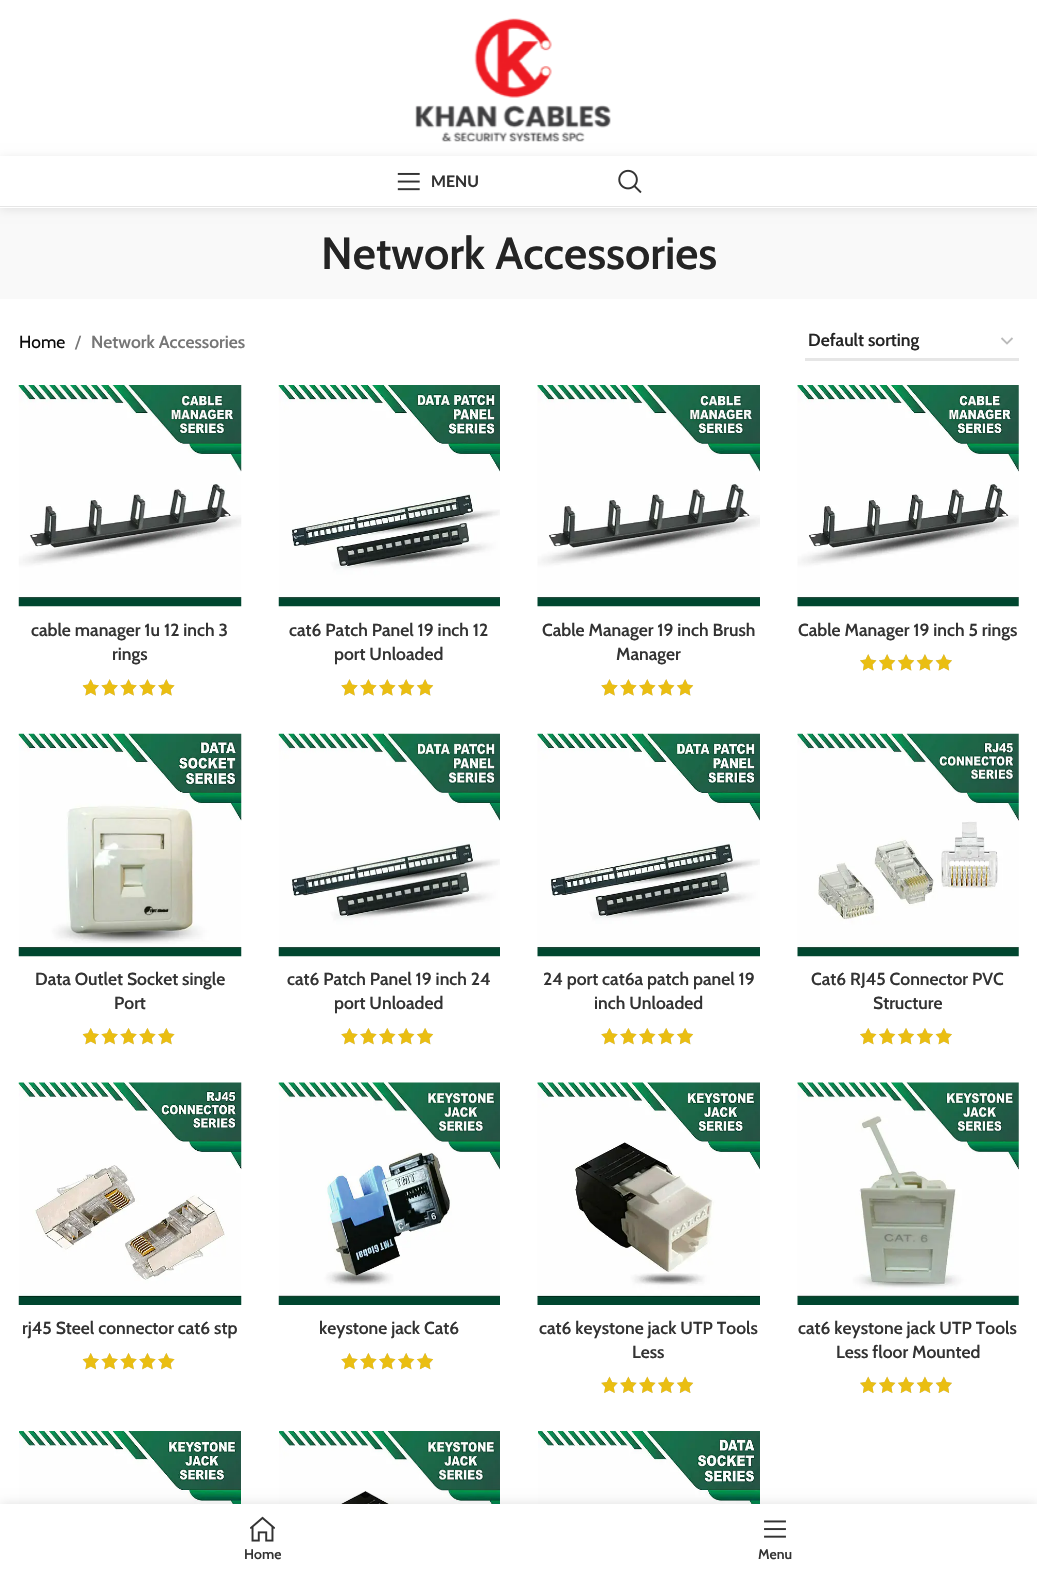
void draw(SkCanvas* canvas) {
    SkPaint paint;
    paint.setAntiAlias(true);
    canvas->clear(0xFFFFFFFF);
    canvas->drawImageRect(SkImages::DeferredFromEncodedData(SkData::MakeFromFileName("img1.png")), SkRect::MakeXYWH(415, 18, 196, 124), SkSamplingOptions());
    paint.setColor(0xFFF9F9F9);
    canvas->drawRect(SkRect::MakeXYWH(0, 208, 1037, 91), paint);
    paint.setColor(0x1A000000);
    paint.setMaskFilter(SkMaskFilter::MakeBlur(kNormal_SkBlurStyle, 5));
    canvas->drawRect(SkRect::MakeXYWH(0, 158, 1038, 51), paint);
    paint.setMaskFilter(nullptr);
    paint.setColor(0xFFFFFFFF);
    canvas->drawRect(SkRect::MakeXYWH(0, 156, 1037, 52), paint);
    paint.setColor(0xFFE6E6E6);
    canvas->drawRect(SkRect::MakeXYWH(0, 206, 1037, 1), paint);
    canvas->drawImageRect(SkImages::DeferredFromEncodedData(SkData::MakeFromFileName("img2.png")), SkRect::MakeXYWH(397, 172, 23, 19), SkSamplingOptions());
    SkFont font1(fontMgr->matchFamilyStyle("Lato", SkFontStyle::Bold()), 16);
    font1.setSubpixel(true);
    paint.setColor(0xFF333333);
    canvas->drawString("MENU", 431, 187, font1, paint);
    canvas->drawImageRect(SkImages::DeferredFromEncodedData(SkData::MakeFromFileName("img3.png")), SkRect::MakeXYWH(618, 169, 24, 25), SkSamplingOptions());
    SkFont font2(fontMgr->matchFamilyStyle("Cabin", SkFontStyle(600, SkFontStyle::kNormal_Width, SkFontStyle::kUpright_Slant)), 45);
    font2.setSubpixel(true);
    paint.setColor(0xFF242424);
    canvas->drawString("Network Accessories", 321, 269, font2, paint);
    SkFont font3(fontMgr->matchFamilyStyle("Cabin", SkFontStyle::Normal()), 17.5f);
    font3.setSubpixel(true);
    paint.setColor(0xFF0A0A0A);
    canvas->drawString("Home", 19, 348, font3, paint);
    paint.setColor(0xFF767676);
    canvas->drawString("/", 75, 348, font3, paint);
    SkFont font4(fontMgr->matchFamilyStyle("Cabin", SkFontStyle(600, SkFontStyle::kNormal_Width, SkFontStyle::kUpright_Slant)), 17.5f);
    font4.setSubpixel(true);
    canvas->drawString("Network Accessories", 91, 348, font4, paint);
    paint.setStyle(SkPaint::kStroke_Style);
    paint.setStrokeWidth(1.8f);
    paint.setColor(0xFFBBBBBB);
    canvas->drawPath(SkPathBuilder().moveTo(1001.5f, 338).lineTo(1007, 343.5f).lineTo(1012.5f, 338).detach(), paint);
    paint.setStyle(SkPaint::kFill_Style);
    paint.setColor(0xFFE6E6E6);
    canvas->drawRect(SkRect::MakeXYWH(805, 358, 214, 3), paint);
    paint.setColor(0xFF242424);
    canvas->drawString("Default sorting", 808, 346, font4, paint);
    canvas->drawImageRect(SkImages::DeferredFromEncodedData(SkData::MakeFromFileName("img4.png")), SkRect::MakeXYWH(18, 385, 224, 222), SkSamplingOptions());
    paint.setColor(0xFF333333);
    canvas->drawString("cable manager 1u 12 inch 3", 31, 636, font4, paint);
    canvas->drawString("rings", 112, 660, font4, paint);
    canvas->drawImageRect(SkImages::DeferredFromEncodedData(SkData::MakeFromFileName("img5.png")), SkRect::MakeXYWH(82, 679, 93, 17), SkSamplingOptions());
    canvas->drawImageRect(SkImages::DeferredFromEncodedData(SkData::MakeFromFileName("img6.png")), SkRect::MakeXYWH(83, 679, 92, 17), SkSamplingOptions());
    canvas->drawImageRect(SkImages::DeferredFromEncodedData(SkData::MakeFromFileName("img7.png")), SkRect::MakeXYWH(278, 385, 222, 222), SkSamplingOptions());
    canvas->drawString("cat6 Patch Panel 19 inch 12", 289, 636, font4, paint);
    canvas->drawString("port Unloaded", 334, 660, font4, paint);
    canvas->drawImageRect(SkImages::DeferredFromEncodedData(SkData::MakeFromFileName("img8.png")), SkRect::MakeXYWH(341, 679, 92, 17), SkSamplingOptions());
    canvas->drawImageRect(SkImages::DeferredFromEncodedData(SkData::MakeFromFileName("img9.png")), SkRect::MakeXYWH(341, 679, 93, 17), SkSamplingOptions());
    canvas->drawImageRect(SkImages::DeferredFromEncodedData(SkData::MakeFromFileName("img10.png")), SkRect::MakeXYWH(537, 385, 223, 222), SkSamplingOptions());
    canvas->drawString("Cable Manager 19 inch Brush", 542, 636, font4, paint);
    canvas->drawString("Manager", 616, 660, font4, paint);
    canvas->drawImageRect(SkImages::DeferredFromEncodedData(SkData::MakeFromFileName("img8.png")), SkRect::MakeXYWH(601, 679, 92, 17), SkSamplingOptions());
    canvas->drawImageRect(SkImages::DeferredFromEncodedData(SkData::MakeFromFileName("img9.png")), SkRect::MakeXYWH(601, 679, 93, 17), SkSamplingOptions());
    canvas->drawImageRect(SkImages::DeferredFromEncodedData(SkData::MakeFromFileName("img11.png")), SkRect::MakeXYWH(797, 385, 222, 222), SkSamplingOptions());
    canvas->drawString("Cable Manager 19 inch 5 rings", 798, 636, font4, paint);
    canvas->drawImageRect(SkImages::DeferredFromEncodedData(SkData::MakeFromFileName("img12.png")), SkRect::MakeXYWH(860, 654, 92, 17), SkSamplingOptions());
    canvas->drawImageRect(SkImages::DeferredFromEncodedData(SkData::MakeFromFileName("img13.png")), SkRect::MakeXYWH(860, 654, 92, 17), SkSamplingOptions());
    canvas->drawImageRect(SkImages::DeferredFromEncodedData(SkData::MakeFromFileName("img14.png")), SkRect::MakeXYWH(18, 733, 224, 224), SkSamplingOptions());
    canvas->drawString("Data Outlet Socket single", 35, 985, font4, paint);
    canvas->drawString("Port", 114, 1009, font4, paint);
    canvas->drawImageRect(SkImages::DeferredFromEncodedData(SkData::MakeFromFileName("img15.png")), SkRect::MakeXYWH(82, 1028, 93, 17), SkSamplingOptions());
    canvas->drawImageRect(SkImages::DeferredFromEncodedData(SkData::MakeFromFileName("img16.png")), SkRect::MakeXYWH(83, 1028, 92, 17), SkSamplingOptions());
    canvas->drawImageRect(SkImages::DeferredFromEncodedData(SkData::MakeFromFileName("img17.png")), SkRect::MakeXYWH(278, 733, 222, 224), SkSamplingOptions());
    canvas->drawString("cat6 Patch Panel 19 inch 24", 287, 985, font4, paint);
    canvas->drawString("port Unloaded", 334, 1009, font4, paint);
    canvas->drawImageRect(SkImages::DeferredFromEncodedData(SkData::MakeFromFileName("img18.png")), SkRect::MakeXYWH(341, 1028, 92, 17), SkSamplingOptions());
    canvas->drawImageRect(SkImages::DeferredFromEncodedData(SkData::MakeFromFileName("img19.png")), SkRect::MakeXYWH(341, 1028, 93, 17), SkSamplingOptions());
    canvas->drawImageRect(SkImages::DeferredFromEncodedData(SkData::MakeFromFileName("img20.png")), SkRect::MakeXYWH(537, 733, 223, 224), SkSamplingOptions());
    canvas->drawString("24 port cat6a patch panel 19", 543, 985, font4, paint);
    canvas->drawString("inch Unloaded", 594, 1009, font4, paint);
    canvas->drawImageRect(SkImages::DeferredFromEncodedData(SkData::MakeFromFileName("img18.png")), SkRect::MakeXYWH(601, 1028, 92, 17), SkSamplingOptions());
    canvas->drawImageRect(SkImages::DeferredFromEncodedData(SkData::MakeFromFileName("img19.png")), SkRect::MakeXYWH(601, 1028, 93, 17), SkSamplingOptions());
    canvas->drawImageRect(SkImages::DeferredFromEncodedData(SkData::MakeFromFileName("img21.png")), SkRect::MakeXYWH(797, 733, 222, 224), SkSamplingOptions());
    canvas->drawString("Cat6 RJ45 Connector PVC", 811, 985, font4, paint);
    canvas->drawString("Structure", 873, 1009, font4, paint);
    canvas->drawImageRect(SkImages::DeferredFromEncodedData(SkData::MakeFromFileName("img22.png")), SkRect::MakeXYWH(860, 1028, 92, 17), SkSamplingOptions());
    canvas->drawImageRect(SkImages::DeferredFromEncodedData(SkData::MakeFromFileName("img23.png")), SkRect::MakeXYWH(860, 1028, 92, 17), SkSamplingOptions());
    canvas->drawImageRect(SkImages::DeferredFromEncodedData(SkData::MakeFromFileName("img24.png")), SkRect::MakeXYWH(18, 1082, 224, 223), SkSamplingOptions());
    canvas->drawString("rj45 Steel connector cat6 stp", 22, 1334, font4, paint);
    canvas->drawImageRect(SkImages::DeferredFromEncodedData(SkData::MakeFromFileName("img15.png")), SkRect::MakeXYWH(82, 1353, 93, 17), SkSamplingOptions());
    canvas->drawImageRect(SkImages::DeferredFromEncodedData(SkData::MakeFromFileName("img16.png")), SkRect::MakeXYWH(83, 1353, 92, 17), SkSamplingOptions());
    canvas->drawImageRect(SkImages::DeferredFromEncodedData(SkData::MakeFromFileName("img25.png")), SkRect::MakeXYWH(278, 1082, 222, 223), SkSamplingOptions());
    canvas->drawString("keystone jack Cat6", 319, 1334, font4, paint);
    canvas->drawImageRect(SkImages::DeferredFromEncodedData(SkData::MakeFromFileName("img18.png")), SkRect::MakeXYWH(341, 1353, 92, 17), SkSamplingOptions());
    canvas->drawImageRect(SkImages::DeferredFromEncodedData(SkData::MakeFromFileName("img19.png")), SkRect::MakeXYWH(341, 1353, 93, 17), SkSamplingOptions());
    canvas->drawImageRect(SkImages::DeferredFromEncodedData(SkData::MakeFromFileName("img26.png")), SkRect::MakeXYWH(537, 1082, 223, 223), SkSamplingOptions());
    canvas->drawString("cat6 keystone jack UTP Tools", 539, 1334, font4, paint);
    canvas->drawString("Less", 632, 1358, font4, paint);
    canvas->drawImageRect(SkImages::DeferredFromEncodedData(SkData::MakeFromFileName("img27.png")), SkRect::MakeXYWH(601, 1376, 92, 17), SkSamplingOptions());
    canvas->drawImageRect(SkImages::DeferredFromEncodedData(SkData::MakeFromFileName("img28.png")), SkRect::MakeXYWH(601, 1376, 93, 17), SkSamplingOptions());
    canvas->drawImageRect(SkImages::DeferredFromEncodedData(SkData::MakeFromFileName("img29.png")), SkRect::MakeXYWH(797, 1082, 222, 223), SkSamplingOptions());
    canvas->drawString("cat6 keystone jack UTP Tools", 798, 1334, font4, paint);
    canvas->drawString("Less floor Mounted", 836, 1358, font4, paint);
    canvas->drawImageRect(SkImages::DeferredFromEncodedData(SkData::MakeFromFileName("img30.png")), SkRect::MakeXYWH(860, 1376, 92, 17), SkSamplingOptions());
    canvas->drawImageRect(SkImages::DeferredFromEncodedData(SkData::MakeFromFileName("img31.png")), SkRect::MakeXYWH(860, 1376, 92, 17), SkSamplingOptions());
    canvas->drawImageRect(SkImages::DeferredFromEncodedData(SkData::MakeFromFileName("img32.png")), SkRect::MakeXYWH(19, 1431, 222, 73), SkSamplingOptions());
    canvas->drawImageRect(SkImages::DeferredFromEncodedData(SkData::MakeFromFileName("img33.png")), SkRect::MakeXYWH(279, 1431, 221, 73), SkSamplingOptions());
    canvas->drawImageRect(SkImages::DeferredFromEncodedData(SkData::MakeFromFileName("img34.png")), SkRect::MakeXYWH(538, 1431, 222, 73), SkSamplingOptions());
    paint.setColor(0x1F000000);
    paint.setMaskFilter(SkMaskFilter::MakeBlur(kNormal_SkBlurStyle, 5.5f));
    canvas->drawRect(SkRect::MakeXYWH(0, 1504, 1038, 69), paint);
    paint.setMaskFilter(nullptr);
    paint.setColor(0xFFFFFFFF);
    canvas->drawRect(SkRect::MakeXYWH(0, 1504, 1037, 68), paint);
    canvas->drawImageRect(SkImages::DeferredFromEncodedData(SkData::MakeFromFileName("img35.png")), SkRect::MakeXYWH(250, 1516, 25, 26), SkSamplingOptions());
    SkFont font5(fontMgr->matchFamilyStyle("Cabin", SkFontStyle(600, SkFontStyle::kNormal_Width, SkFontStyle::kUpright_Slant)), 14);
    font5.setSubpixel(true);
    paint.setColor(0xFF333333);
    canvas->drawString("Home", 244, 1559, font5, paint);
    canvas->drawImageRect(SkImages::DeferredFromEncodedData(SkData::MakeFromFileName("img36.png")), SkRect::MakeXYWH(764, 1520, 22, 18), SkSamplingOptions());
    canvas->drawString("Menu", 758, 1559, font5, paint);
}
